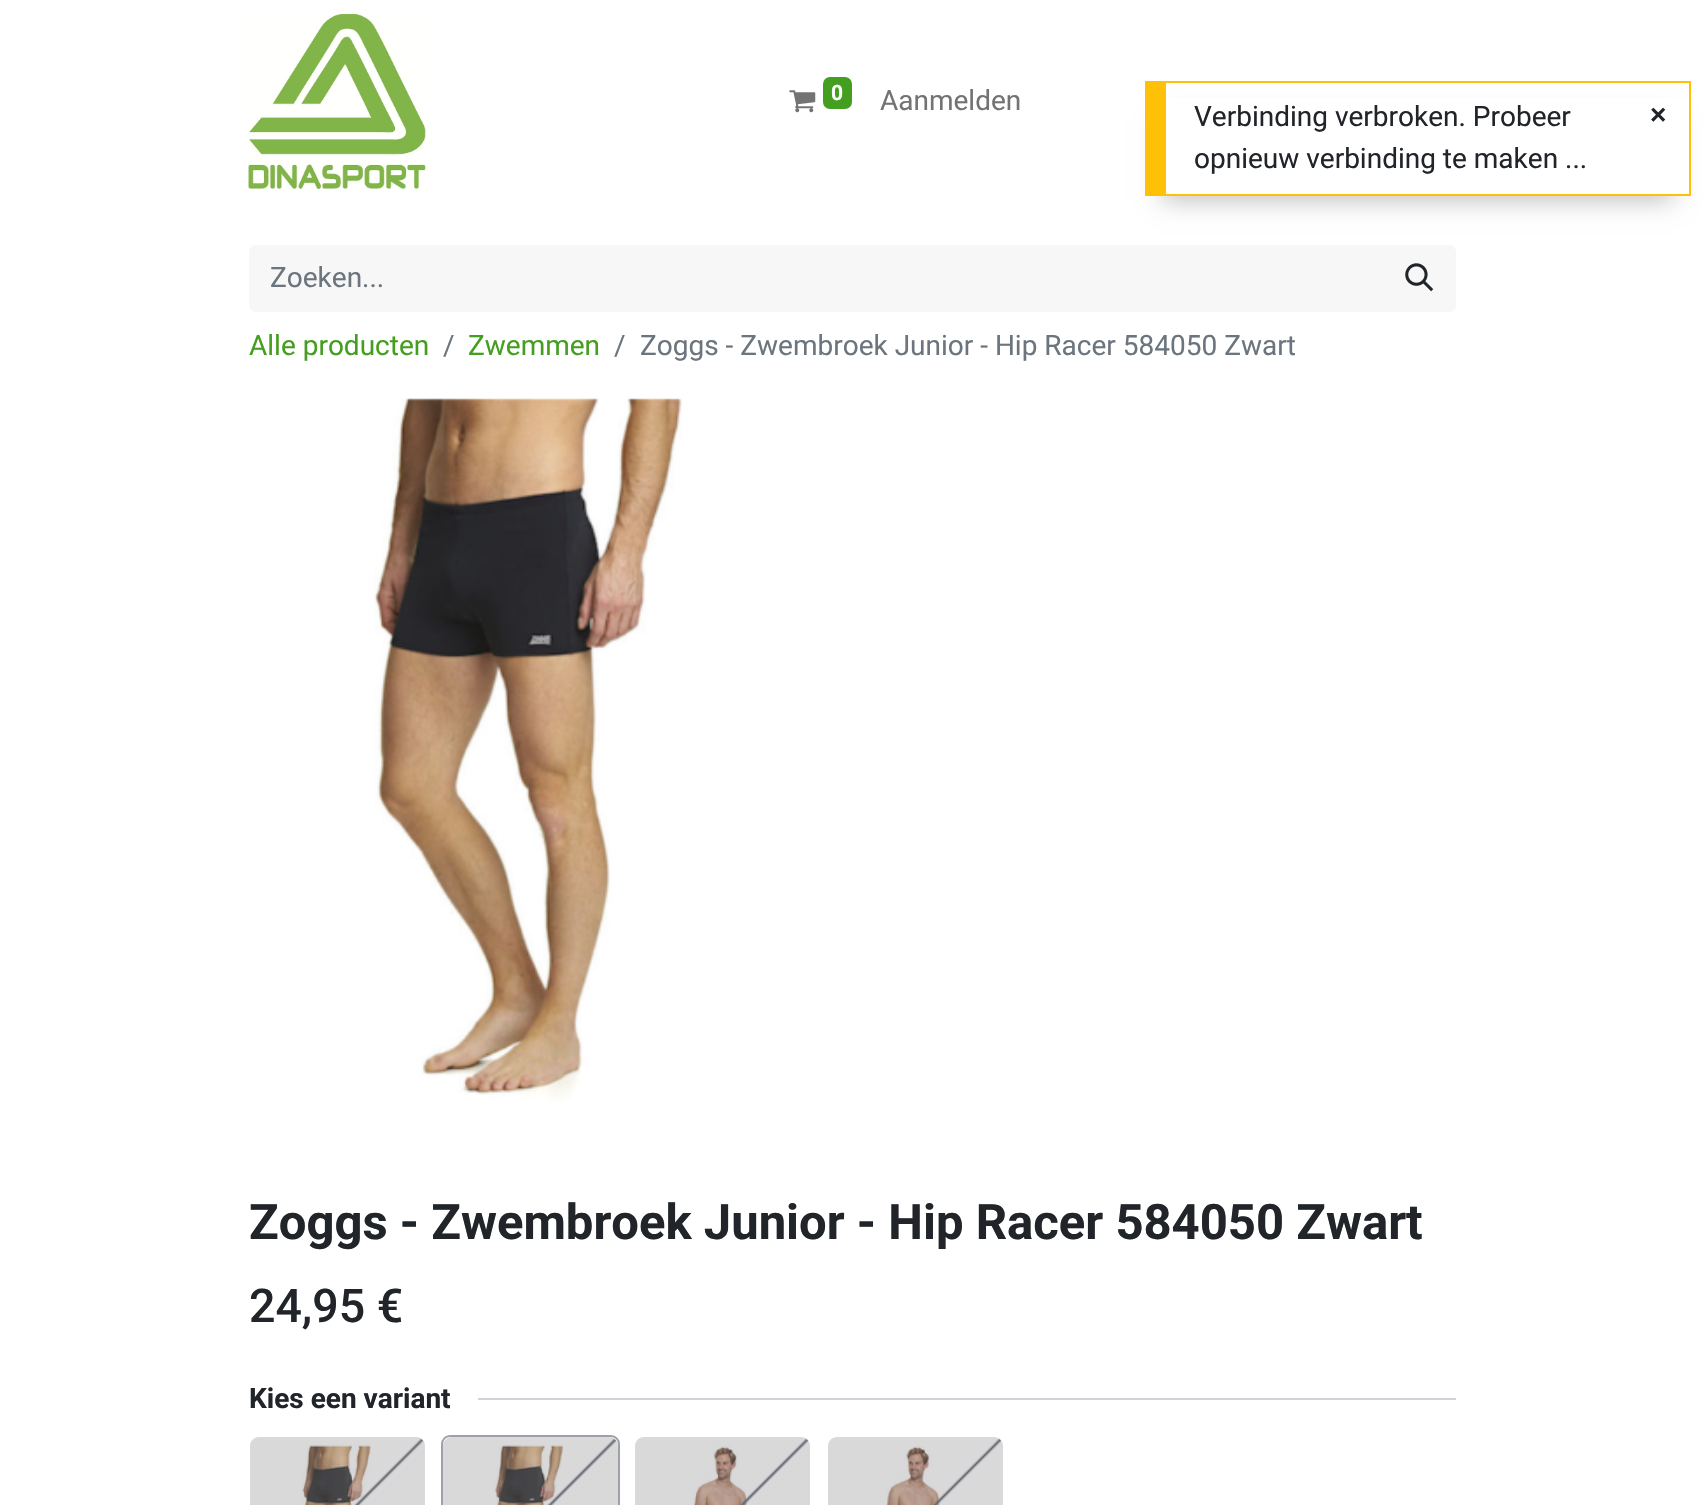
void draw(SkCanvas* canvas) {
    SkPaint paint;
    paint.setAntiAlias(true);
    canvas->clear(0xFFFFFFFF);
    canvas->drawImageRect(SkImages::DeferredFromEncodedData(SkData::MakeFromFileName("img1.png")), SkRect::MakeXYWH(248, 14, 178, 175), SkSamplingOptions());
    canvas->drawImageRect(SkImages::DeferredFromEncodedData(SkData::MakeFromFileName("img2.png")), SkRect::MakeXYWH(789, 90, 27, 23), SkSamplingOptions());
    paint.setColor(0xFF449E1F);
    canvas->drawRoundRect(SkRect::MakeXYWH(823, 77, 29, 32), 7, 7, paint);
    SkFont font1(fontMgr->matchFamilyStyle("Roboto", SkFontStyle::Bold()), 21);
    font1.setSubpixel(true);
    paint.setColor(0xFFFFFFFF);
    canvas->drawString("0", 831, 100, font1, paint);
    SkFont font2(fontMgr->matchFamilyStyle("Roboto", SkFontStyle::Normal()), 28);
    font2.setSubpixel(true);
    paint.setColor(0xFF737373);
    canvas->drawString("Aanmelden", 880, 110, font2, paint);
    paint.setColor(0xFFF7F7F7);
    canvas->drawPath(SkPathBuilder().moveTo(256, 245).lineTo(1384, 245).lineTo(1384, 312).lineTo(256, 312).cubicTo(252, 312, 249, 309, 249, 305).lineTo(249, 252).cubicTo(249, 248, 252, 245, 256, 245).close().detach(), paint);
    paint.setColor(0xFF6C757D);
    canvas->drawString("Zoeken...", 270, 287, font2, paint);
    paint.setColor(0xFFF7F7F7);
    canvas->drawPath(SkPathBuilder().moveTo(1383, 245).lineTo(1449, 245).cubicTo(1453, 245, 1456, 248, 1456, 252).lineTo(1456, 305).cubicTo(1456, 309, 1453, 312, 1449, 312).lineTo(1383, 312).close().detach(), paint);
    canvas->drawImageRect(SkImages::DeferredFromEncodedData(SkData::MakeFromFileName("img3.png")), SkRect::MakeXYWH(1405, 263, 29, 29), SkSamplingOptions());
    paint.setColor(0xFF449E1F);
    canvas->drawString("Alle producten", 249, 355, font2, paint);
    paint.setColor(0xFF6C757D);
    canvas->drawString("/", 443, 355, font2, paint);
    paint.setColor(0xFF449E1F);
    canvas->drawString("Zwemmen", 468, 355, font2, paint);
    paint.setColor(0xFF6C757D);
    canvas->drawString("/", 614, 355, font2, paint);
    canvas->drawString("Zoggs - Zwembroek Junior - Hip Racer 584050 Zwart", 640, 355, font2, paint);
    canvas->drawImageRect(SkImages::DeferredFromEncodedData(SkData::MakeFromFileName("img4.png")), SkRect::MakeXYWH(374, 398, 309, 704), SkSamplingOptions());
    SkFont font3(fontMgr->matchFamilyStyle("Roboto", SkFontStyle::Bold()), 49);
    font3.setSubpixel(true);
    paint.setColor(0xFF212529);
    canvas->drawString("Zoggs - Zwembroek Junior - Hip Racer 584050 Zwart", 249, 1239, font3, paint);
    SkFont font4(fontMgr->matchFamilyStyle("Roboto", SkFontStyle(500, SkFontStyle::kNormal_Width, SkFontStyle::kUpright_Slant)), 46.5f);
    font4.setSubpixel(true);
    canvas->drawString("24,95 €", 249, 1322, font4, paint);
    SkFont font5(fontMgr->matchFamilyStyle("Roboto", SkFontStyle::Bold()), 28);
    font5.setSubpixel(true);
    canvas->drawString("Kies een variant", 249, 1408, font5, paint);
    paint.setColor(0xFFCED4DA);
    canvas->drawRect(SkRect::MakeXYWH(478, 1398, 978, 2), paint);
    canvas->drawImageRect(SkImages::DeferredFromEncodedData(SkData::MakeFromFileName("img5.png")), SkRect::MakeXYWH(302, 1445, 69, 60), SkSamplingOptions());
    {
        const SkColor colors[] = {0x4D808080, 0xFF626774, 0x4D808080};
        const float stops[] = {0.49f, 0.5f, 0.51f};
        const SkPoint ends[] = {{425, 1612}, {250, 1437}};
        paint.setShader(SkGradientShader::MakeLinear(ends, colors, stops, 3, SkTileMode::kClamp));
        paint.setAlpha(255);
    }
    canvas->drawPath(SkPathBuilder().moveTo(259, 1437).lineTo(416, 1437).cubicTo(421, 1437, 425, 1441, 425, 1446).lineTo(425, 1505).lineTo(250, 1505).lineTo(250, 1446).cubicTo(250, 1441, 254, 1437, 259, 1437).close().detach(), paint);
    paint.setStyle(SkPaint::kStroke_Style);
    paint.setStrokeWidth(2);
    paint.setShader(nullptr);
    paint.setColor(0xFF9DA1AA);
    canvas->drawRoundRect(SkRect::MakeXYWH(442, 1436, 177, 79), 8, 8, paint);
    canvas->drawImageRect(SkImages::DeferredFromEncodedData(SkData::MakeFromFileName("img6.png")), SkRect::MakeXYWH(495, 1445, 68, 60), SkSamplingOptions());
    paint.setStyle(SkPaint::kFill_Style);
    {
        const SkColor colors[] = {0x4D808080, 0xFF626774, 0x4D808080};
        const float stops[] = {0.49f, 0.5f, 0.51f};
        const SkPoint ends[] = {{618, 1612}, {443, 1437}};
        paint.setShader(SkGradientShader::MakeLinear(ends, colors, stops, 3, SkTileMode::kClamp));
        paint.setAlpha(255);
    }
    canvas->drawPath(SkPathBuilder().moveTo(452, 1437).lineTo(609, 1437).cubicTo(614, 1437, 618, 1441, 618, 1446).lineTo(618, 1505).lineTo(443, 1505).lineTo(443, 1446).cubicTo(443, 1441, 447, 1437, 452, 1437).close().detach(), paint);
    canvas->drawImageRect(SkImages::DeferredFromEncodedData(SkData::MakeFromFileName("img7.png")), SkRect::MakeXYWH(693, 1445, 55, 60), SkSamplingOptions());
    {
        const SkColor colors[] = {0x4D808080, 0xFF626774, 0x4D808080};
        const float stops[] = {0.49f, 0.5f, 0.51f};
        const SkPoint ends[] = {{810, 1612}, {635, 1437}};
        paint.setShader(SkGradientShader::MakeLinear(ends, colors, stops, 3, SkTileMode::kClamp));
        paint.setAlpha(255);
    }
    canvas->drawPath(SkPathBuilder().moveTo(644, 1437).lineTo(801, 1437).cubicTo(806, 1437, 810, 1441, 810, 1446).lineTo(810, 1505).lineTo(635, 1505).lineTo(635, 1446).cubicTo(635, 1441, 639, 1437, 644, 1437).close().detach(), paint);
    canvas->drawImageRect(SkImages::DeferredFromEncodedData(SkData::MakeFromFileName("img8.png")), SkRect::MakeXYWH(886, 1445, 54, 60), SkSamplingOptions());
    {
        const SkColor colors[] = {0x4D808080, 0xFF626774, 0x4D808080};
        const float stops[] = {0.49f, 0.5f, 0.51f};
        const SkPoint ends[] = {{1003, 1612}, {828, 1437}};
        paint.setShader(SkGradientShader::MakeLinear(ends, colors, stops, 3, SkTileMode::kClamp));
        paint.setAlpha(255);
    }
    canvas->drawPath(SkPathBuilder().moveTo(837, 1437).lineTo(994, 1437).cubicTo(999, 1437, 1003, 1441, 1003, 1446).lineTo(1003, 1505).lineTo(828, 1505).lineTo(828, 1446).cubicTo(828, 1441, 832, 1437, 837, 1437).close().detach(), paint);
    paint.setShader(nullptr);
    paint.setColor(0x40000000);
    paint.setMaskFilter(SkMaskFilter::MakeBlur(kNormal_SkBlurStyle, 12));
    canvas->drawRect(SkRect::MakeXYWH(1162, 119, 511, 81), paint);
    paint.setMaskFilter(nullptr);
    paint.setColor(0xFFFFFFFF);
    canvas->drawRect(SkRect::MakeXYWH(1166, 98, 523, 96), paint);
    paint.setColor(0xFFFFC107);
    canvas->drawRect(SkRect::MakeXYWH(1166, 81, 525, 2), paint);
    canvas->drawRect(SkRect::MakeXYWH(1689, 81, 2, 115), paint);
    canvas->drawRect(SkRect::MakeXYWH(1166, 194, 525, 2), paint);
    canvas->drawRect(SkRect::MakeXYWH(1145, 81, 21, 115), paint);
    paint.setColor(0xFF212529);
    canvas->drawString("Verbinding verbroken. Probeer", 1194, 126, font2, paint);
    canvas->drawString("opnieuw verbinding te maken ...", 1194, 168, font2, paint);
    SkFont font6(fontMgr->matchFamilyStyle("Liberation Sans", SkFontStyle::Bold()), 28);
    font6.setSubpixel(true);
    canvas->drawString("×", 1650, 124, font6, paint);
}
